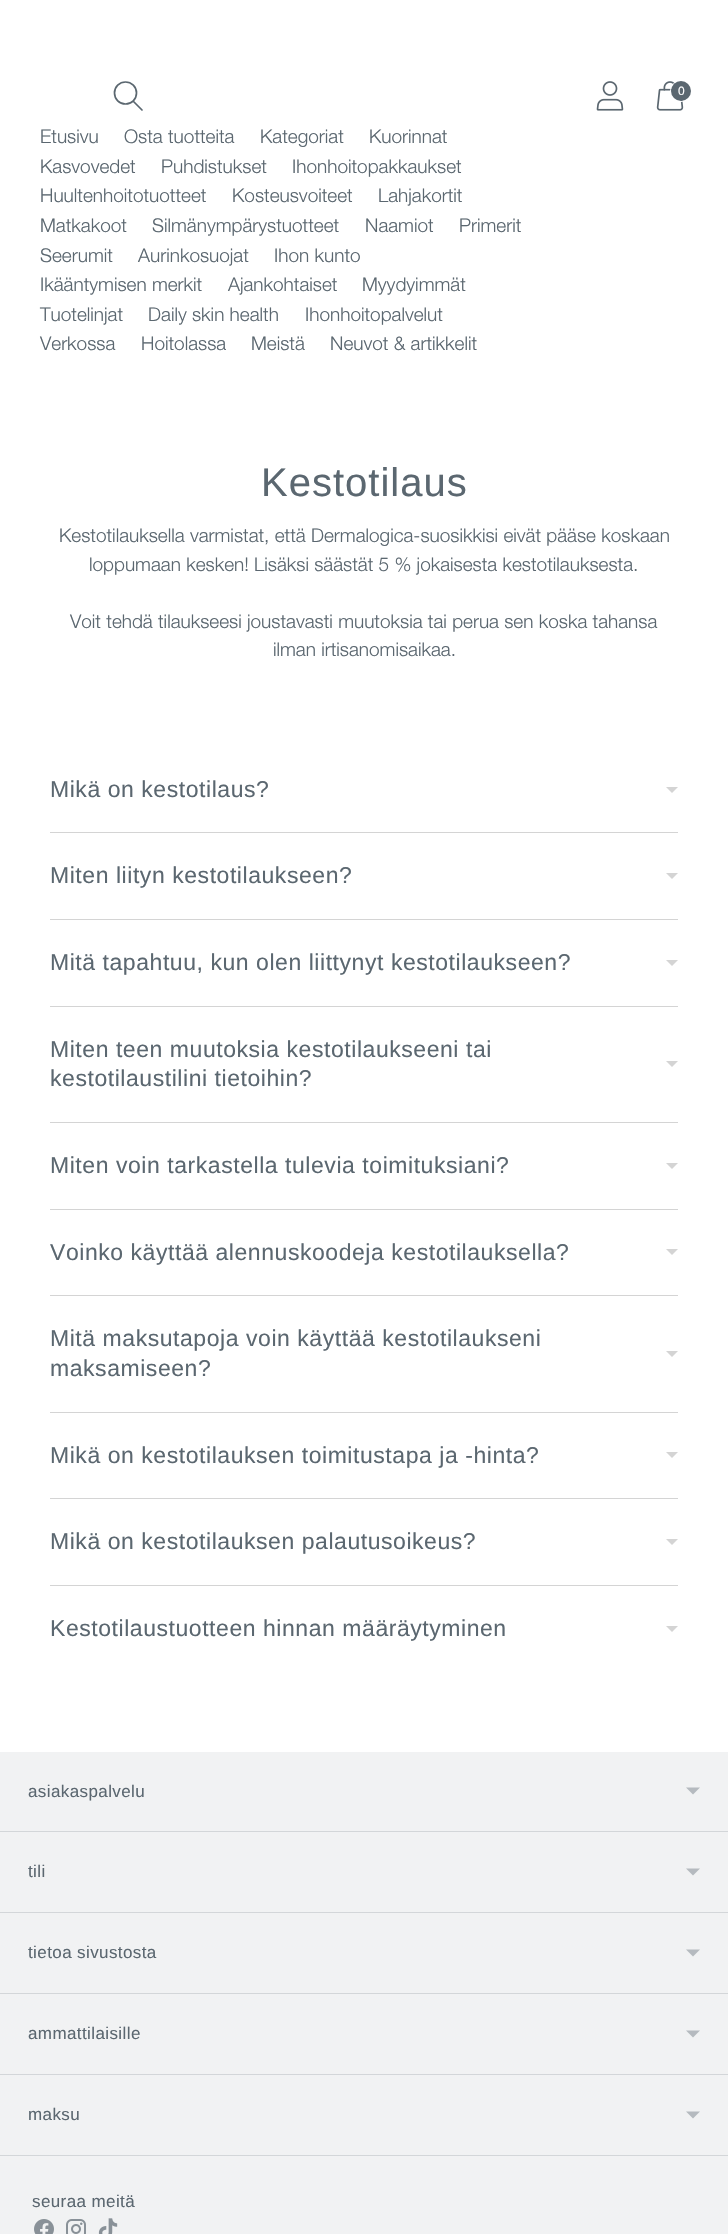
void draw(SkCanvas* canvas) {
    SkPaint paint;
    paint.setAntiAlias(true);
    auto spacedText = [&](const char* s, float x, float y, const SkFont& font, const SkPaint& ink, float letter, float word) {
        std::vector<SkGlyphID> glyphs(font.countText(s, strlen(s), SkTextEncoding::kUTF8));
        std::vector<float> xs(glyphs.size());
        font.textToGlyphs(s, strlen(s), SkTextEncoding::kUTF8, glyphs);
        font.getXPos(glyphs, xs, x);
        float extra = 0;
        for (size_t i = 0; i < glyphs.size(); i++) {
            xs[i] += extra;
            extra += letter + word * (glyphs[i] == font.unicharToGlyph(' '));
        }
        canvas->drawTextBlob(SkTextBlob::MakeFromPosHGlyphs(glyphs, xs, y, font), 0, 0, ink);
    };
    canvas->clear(0xFFFFFFFF);
    paint.setStyle(SkPaint::kStroke_Style);
    paint.setStrokeWidth(1.7f);
    paint.setColor(0xFF5B6770);
    canvas->drawCircle(125.5f, 93, 11, paint);
    paint.setStrokeCap(SkPaint::kRound_Cap);
    paint.setStrokeJoin(SkPaint::kRound_Join);
    canvas->drawPath(SkPathBuilder().moveTo(133.5f, 101.5f).lineTo(142, 110).detach(), paint);
    canvas->drawImageRect(SkImages::DeferredFromEncodedData(SkData::MakeFromFileName("img1.png")), SkRect::MakeXYWH(596, 81, 28, 30), SkSamplingOptions());
    canvas->drawImageRect(SkImages::DeferredFromEncodedData(SkData::MakeFromFileName("img2.png")), SkRect::MakeXYWH(656, 81, 28, 30), SkSamplingOptions());
    paint.setStrokeWidth(1);
    paint.setStrokeCap(SkPaint::kButt_Cap);
    paint.setStrokeJoin(SkPaint::kMiter_Join);
    paint.setColor(0xFFFFFFFF);
    canvas->drawCircle(681, 91, 10.5f, paint);
    paint.setStyle(SkPaint::kFill_Style);
    paint.setColor(0xFF5B6770);
    canvas->drawCircle(681, 91, 10, paint);
    SkFont font1(fontMgr->matchFamilyStyle("Liberation Sans", SkFontStyle::Normal()), 12);
    font1.setSubpixel(true);
    paint.setColor(0xFFFFFFFF);
    canvas->drawString("0", 678, 95, font1, paint);
    SkFont font2(fontMgr->matchFamilyStyle("Helvetica Neue", SkFontStyle(300, SkFontStyle::kNormal_Width, SkFontStyle::kUpright_Slant)), 19);
    font2.setSubpixel(true);
    paint.setColor(0xFF5B6770);
    canvas->drawString("Etusivu", 40, 143, font2, paint);
    canvas->drawString("Osta tuotteita", 124, 143, font2, paint);
    canvas->drawString("Kategoriat", 260, 143, font2, paint);
    canvas->drawString("Kuorinnat", 369, 143, font2, paint);
    canvas->drawString("Kasvovedet", 40, 173, font2, paint);
    canvas->drawString("Puhdistukset", 161, 173, font2, paint);
    canvas->drawString("Ihonhoitopakkaukset", 292, 173, font2, paint);
    canvas->drawString("Huultenhoitotuotteet", 40, 202, font2, paint);
    canvas->drawString("Kosteusvoiteet", 232, 202, font2, paint);
    canvas->drawString("Lahjakortit", 378, 202, font2, paint);
    canvas->drawString("Matkakoot", 40, 232, font2, paint);
    canvas->drawString("Silmänympärystuotteet", 152, 232, font2, paint);
    canvas->drawString("Naamiot", 365, 232, font2, paint);
    canvas->drawString("Primerit", 459, 232, font2, paint);
    canvas->drawString("Seerumit", 40, 262, font2, paint);
    canvas->drawString("Aurinkosuojat", 138, 262, font2, paint);
    canvas->drawString("Ihon kunto", 274, 262, font2, paint);
    canvas->drawString("Ikääntymisen merkit", 40, 291, font2, paint);
    canvas->drawString("Ajankohtaiset", 228, 291, font2, paint);
    canvas->drawString("Myydyimmät", 362, 291, font2, paint);
    canvas->drawString("Tuotelinjat", 40, 321, font2, paint);
    canvas->drawString("Daily skin health", 148, 321, font2, paint);
    canvas->drawString("Ihonhoitopalvelut", 305, 321, font2, paint);
    canvas->drawString("Verkossa", 40, 350, font2, paint);
    canvas->drawString("Hoitolassa", 141, 350, font2, paint);
    canvas->drawString("Meistä", 251, 350, font2, paint);
    canvas->drawString("Neuvot & artikkelit", 330, 350, font2, paint);
    SkFont font3(fontMgr->matchFamilyStyle("Liberation Sans", SkFontStyle::Normal()), 40);
    font3.setSubpixel(true);
    spacedText("Kestotilaus", 261, 496, font3, paint, 1, 0);
    canvas->drawString("Kestotilauksella varmistat, että Dermalogica-suosikkisi eivät pääse koskaan", 59, 542, font2, paint);
    canvas->drawString("loppumaan kesken! Lisäksi säästät 5 % jokaisesta kestotilauksesta.", 89, 571, font2, paint);
    canvas->drawString("Voit tehdä tilaukseesi joustavasti muutoksia tai perua sen koska tahansa", 70, 628, font2, paint);
    canvas->drawString("ilman irtisanomisaikaa.", 273, 656, font2, paint);
    SkFont font4(fontMgr->matchFamilyStyle("Liberation Sans", SkFontStyle::Normal()), 23);
    font4.setSubpixel(true);
    spacedText("Mikä on kestotilaus?", 50, 797, font4, paint, 0.55f, 0);
    paint.setColor(0xFFD4D4D4);
    canvas->drawPath(SkPathBuilder().moveTo(666, 787).lineTo(672, 793).lineTo(678, 787).close().detach(), paint);
    canvas->drawRect(SkRect::MakeXYWH(50, 832, 628, 1), paint);
    paint.setColor(0xFF5B6770);
    spacedText("Miten liityn kestotilaukseen?", 50, 883, font4, paint, 0.55f, 0);
    paint.setColor(0xFFD4D4D4);
    canvas->drawPath(SkPathBuilder().moveTo(666, 873).lineTo(672, 879).lineTo(678, 873).close().detach(), paint);
    canvas->drawRect(SkRect::MakeXYWH(50, 919, 628, 1), paint);
    paint.setColor(0xFF5B6770);
    spacedText("Mitä tapahtuu, kun olen liittynyt kestotilaukseen?", 50, 970, font4, paint, 0.55f, 0);
    paint.setColor(0xFFD4D4D4);
    canvas->drawPath(SkPathBuilder().moveTo(666, 960).lineTo(672, 966).lineTo(678, 960).close().detach(), paint);
    canvas->drawRect(SkRect::MakeXYWH(50, 1006, 628, 1), paint);
    paint.setColor(0xFF5B6770);
    spacedText("Miten teen muutoksia kestotilaukseeni tai", 50, 1057, font4, paint, 0.55f, 0);
    spacedText("kestotilaustilini tietoihin?", 50, 1086, font4, paint, 0.55f, 0);
    paint.setColor(0xFFD4D4D4);
    canvas->drawPath(SkPathBuilder().moveTo(666, 1061).lineTo(672, 1067).lineTo(678, 1061).close().detach(), paint);
    canvas->drawRect(SkRect::MakeXYWH(50, 1122, 628, 1), paint);
    paint.setColor(0xFF5B6770);
    spacedText("Miten voin tarkastella tulevia toimituksiani?", 50, 1173, font4, paint, 0.55f, 0);
    paint.setColor(0xFFD4D4D4);
    canvas->drawPath(SkPathBuilder().moveTo(666, 1163).lineTo(672, 1169).lineTo(678, 1163).close().detach(), paint);
    canvas->drawRect(SkRect::MakeXYWH(50, 1209, 628, 1), paint);
    paint.setColor(0xFF5B6770);
    spacedText("Voinko käyttää alennuskoodeja kestotilauksella?", 50, 1260, font4, paint, 0.55f, 0);
    paint.setColor(0xFFD4D4D4);
    canvas->drawPath(SkPathBuilder().moveTo(666, 1249).lineTo(672, 1255).lineTo(678, 1249).close().detach(), paint);
    canvas->drawRect(SkRect::MakeXYWH(50, 1295, 628, 1), paint);
    paint.setColor(0xFF5B6770);
    spacedText("Mitä maksutapoja voin käyttää kestotilaukseni", 50, 1346, font4, paint, 0.55f, 0);
    spacedText("maksamiseen?", 50, 1376, font4, paint, 0.55f, 0);
    paint.setColor(0xFFD4D4D4);
    canvas->drawPath(SkPathBuilder().moveTo(666, 1351).lineTo(672, 1357).lineTo(678, 1351).close().detach(), paint);
    canvas->drawRect(SkRect::MakeXYWH(50, 1412, 628, 1), paint);
    paint.setColor(0xFF5B6770);
    spacedText("Mikä on kestotilauksen toimitustapa ja -hinta?", 50, 1463, font4, paint, 0.55f, 0);
    paint.setColor(0xFFD4D4D4);
    canvas->drawPath(SkPathBuilder().moveTo(666, 1452).lineTo(672, 1458).lineTo(678, 1452).close().detach(), paint);
    canvas->drawRect(SkRect::MakeXYWH(50, 1498, 628, 1), paint);
    paint.setColor(0xFF5B6770);
    spacedText("Mikä on kestotilauksen palautusoikeus?", 50, 1549, font4, paint, 0.55f, 0);
    paint.setColor(0xFFD4D4D4);
    canvas->drawPath(SkPathBuilder().moveTo(666, 1539).lineTo(672, 1545).lineTo(678, 1539).close().detach(), paint);
    canvas->drawRect(SkRect::MakeXYWH(50, 1585, 628, 1), paint);
    paint.setColor(0xFF5B6770);
    spacedText("Kestotilaustuotteen hinnan määräytyminen", 50, 1636, font4, paint, 0.55f, 0);
    paint.setColor(0xFFD4D4D4);
    canvas->drawPath(SkPathBuilder().moveTo(666, 1626).lineTo(672, 1632).lineTo(678, 1626).close().detach(), paint);
    paint.setColor(0xFFF1F2F3);
    canvas->drawRect(SkRect::MakeXYWH(0, 1752, 728, 482), paint);
    paint.setColor(0xFFD3D6D9);
    canvas->drawRect(SkRect::MakeXYWH(0, 1831, 728, 1), paint);
    SkFont font5(fontMgr->matchFamilyStyle("Liberation Sans", SkFontStyle::Normal()), 17);
    font5.setSubpixel(true);
    paint.setColor(0xFF5B6770);
    spacedText("asiakaspalvelu", 28, 1797, font5, paint, 0.4f, 0);
    paint.setColor(0xFFB5BABF);
    canvas->drawPath(SkPathBuilder().moveTo(686, 1787.5f).lineTo(693, 1794.5f).lineTo(700, 1787.5f).close().detach(), paint);
    paint.setColor(0xFFD3D6D9);
    canvas->drawRect(SkRect::MakeXYWH(0, 1912, 728, 1), paint);
    paint.setColor(0xFF5B6770);
    spacedText("tili", 28, 1877, font5, paint, 0.4f, 0);
    paint.setColor(0xFFB5BABF);
    canvas->drawPath(SkPathBuilder().moveTo(686, 1868.5f).lineTo(693, 1875.5f).lineTo(700, 1868.5f).close().detach(), paint);
    paint.setColor(0xFFD3D6D9);
    canvas->drawRect(SkRect::MakeXYWH(0, 1993, 728, 1), paint);
    paint.setColor(0xFF5B6770);
    spacedText("tietoa sivustosta", 28, 1958, font5, paint, 0.4f, 0);
    paint.setColor(0xFFB5BABF);
    canvas->drawPath(SkPathBuilder().moveTo(686, 1949.5f).lineTo(693, 1956.5f).lineTo(700, 1949.5f).close().detach(), paint);
    paint.setColor(0xFFD3D6D9);
    canvas->drawRect(SkRect::MakeXYWH(0, 2074, 728, 1), paint);
    paint.setColor(0xFF5B6770);
    spacedText("ammattilaisille", 28, 2039, font5, paint, 0.4f, 0);
    paint.setColor(0xFFB5BABF);
    canvas->drawPath(SkPathBuilder().moveTo(686, 2030.5f).lineTo(693, 2037.5f).lineTo(700, 2030.5f).close().detach(), paint);
    paint.setColor(0xFFD3D6D9);
    canvas->drawRect(SkRect::MakeXYWH(0, 2155, 728, 1), paint);
    paint.setColor(0xFF5B6770);
    spacedText("maksu", 28, 2120, font5, paint, 0.4f, 0);
    paint.setColor(0xFFB5BABF);
    canvas->drawPath(SkPathBuilder().moveTo(686, 2111.5f).lineTo(693, 2118.5f).lineTo(700, 2111.5f).close().detach(), paint);
    paint.setColor(0xFF5B6770);
    spacedText("seuraa meitä", 32, 2207, font5, paint, 0.4f, 0);
    canvas->drawImageRect(SkImages::DeferredFromEncodedData(SkData::MakeFromFileName("img3.png")), SkRect::MakeXYWH(34, 2219, 20, 15), SkSamplingOptions());
    canvas->drawImageRect(SkImages::DeferredFromEncodedData(SkData::MakeFromFileName("img4.png")), SkRect::MakeXYWH(66, 2219, 20, 15), SkSamplingOptions());
    canvas->drawImageRect(SkImages::DeferredFromEncodedData(SkData::MakeFromFileName("img5.png")), SkRect::MakeXYWH(98, 2218, 20, 16), SkSamplingOptions());
}
